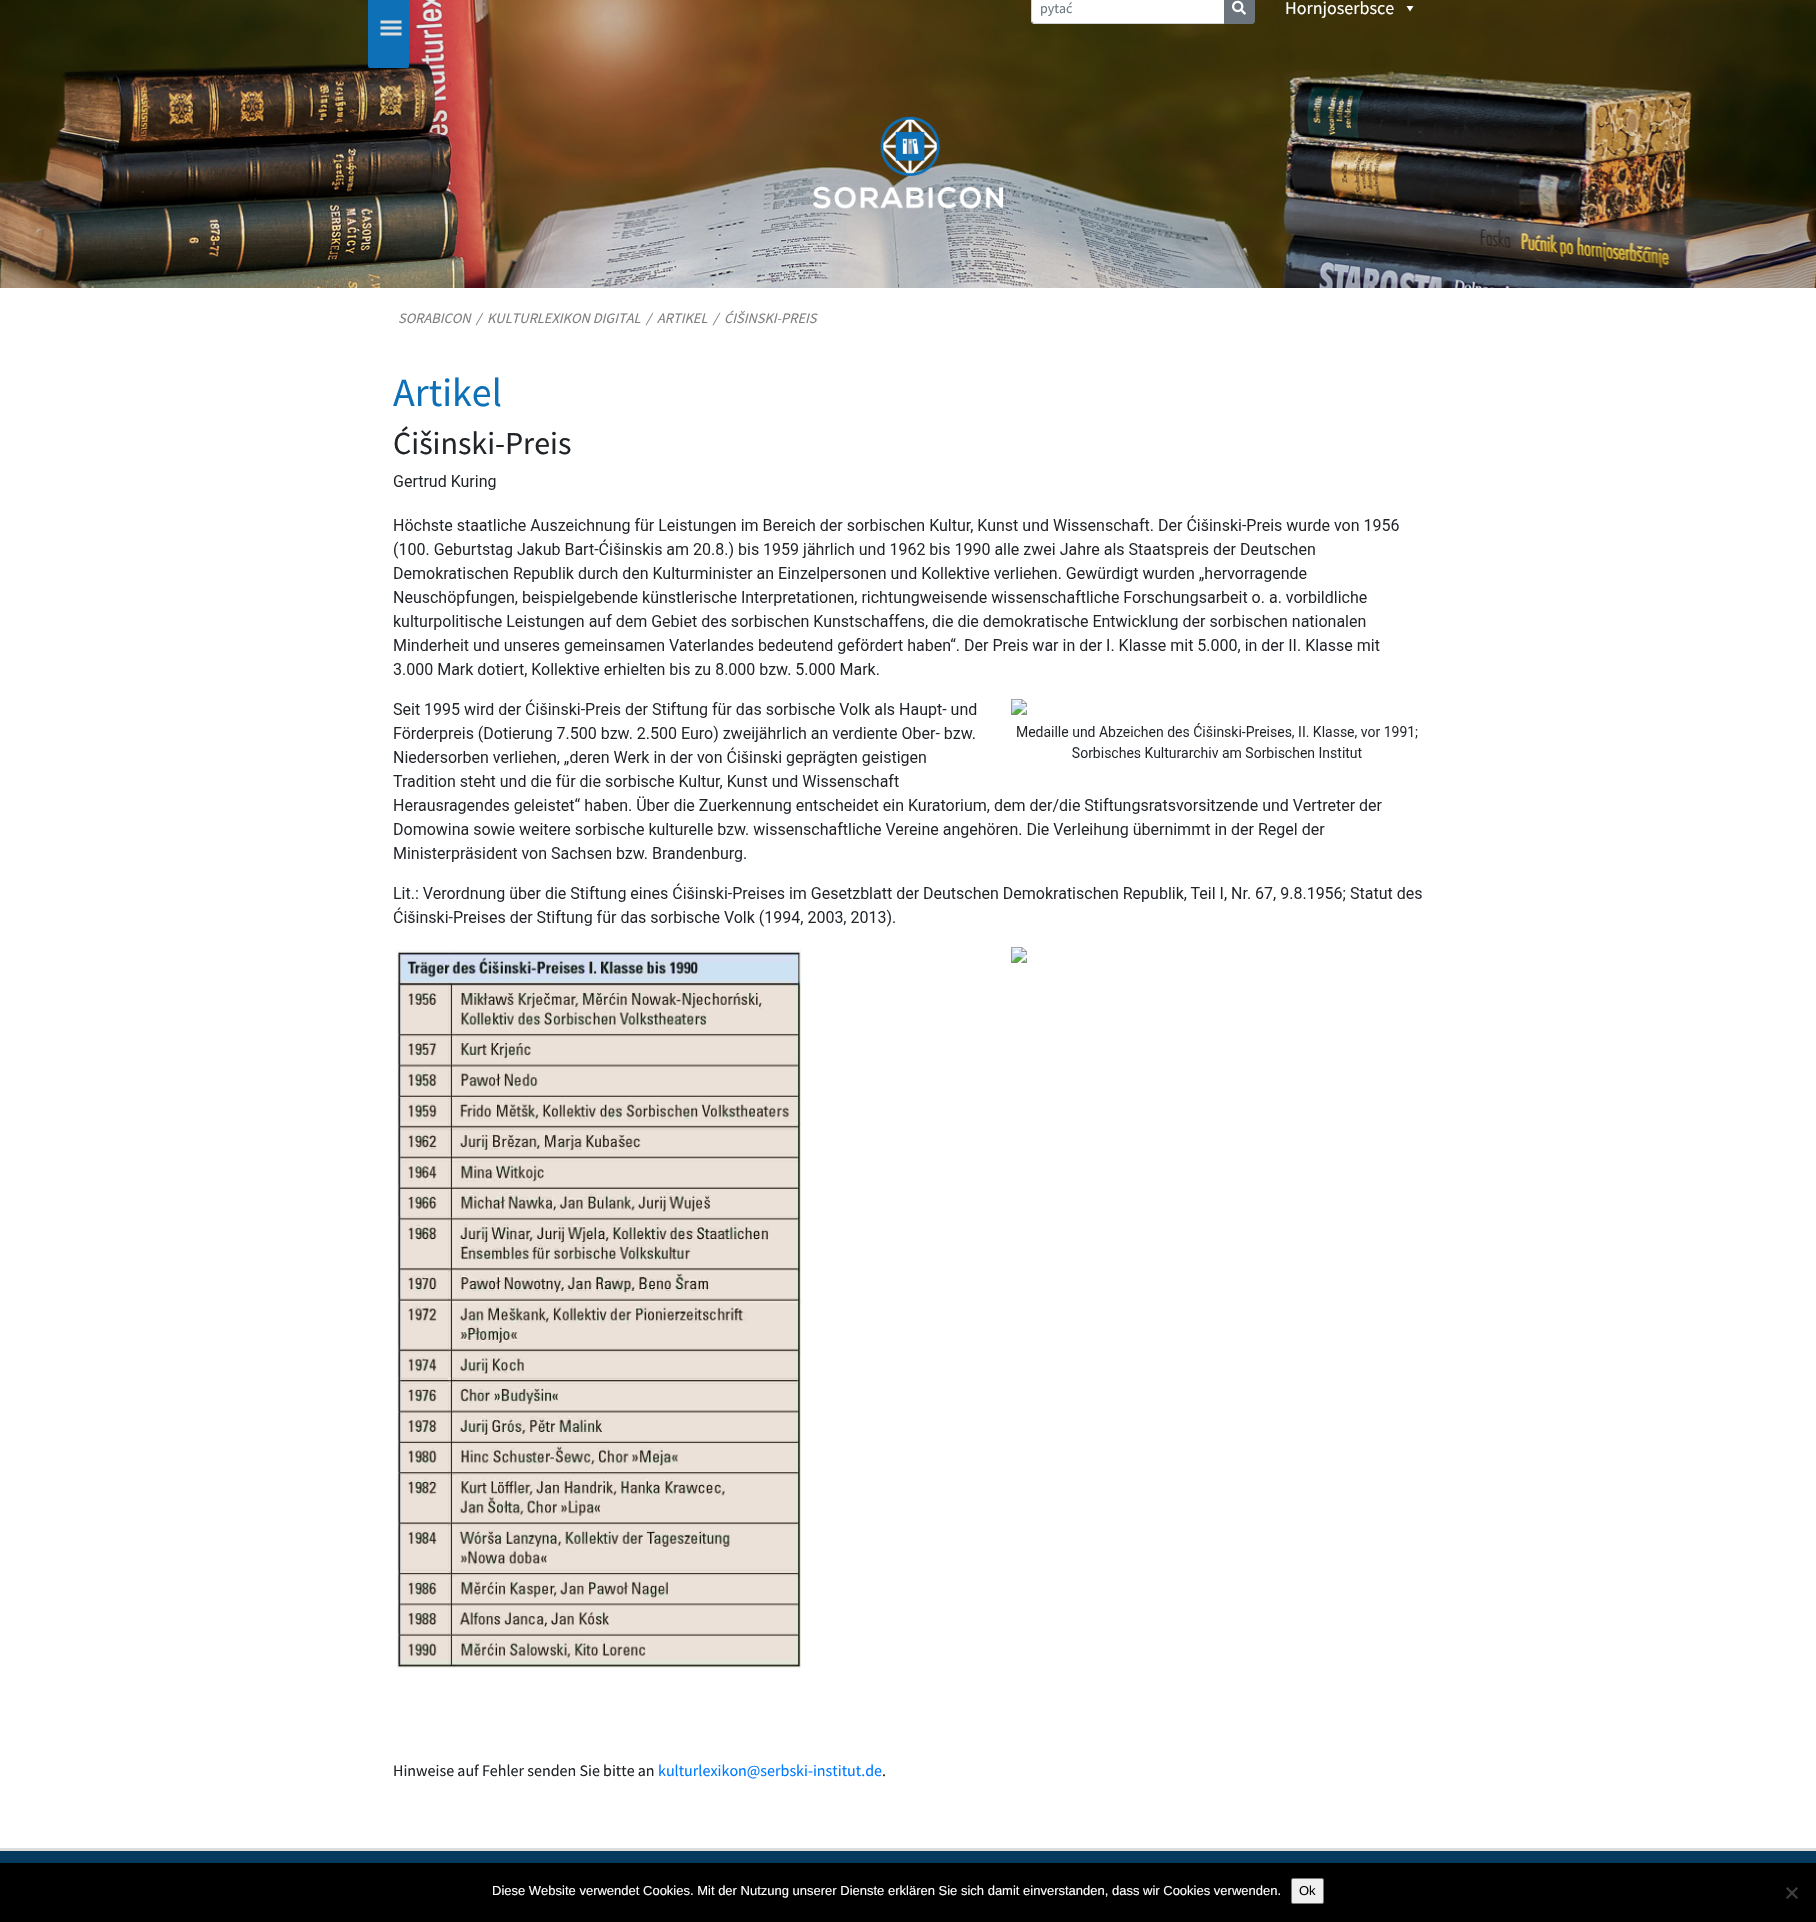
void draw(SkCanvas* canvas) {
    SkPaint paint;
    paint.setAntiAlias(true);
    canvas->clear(0xFFFFFFFF);
    canvas->drawImageRect(SkImages::DeferredFromEncodedData(SkData::MakeFromFileName("img1.png")), SkRect::MakeXYWH(0, 0, 1816, 288), SkSamplingOptions());
    paint.setColor(0xFF0E71B8);
    canvas->drawPath(SkPathBuilder().moveTo(368, -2).lineTo(409, -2).lineTo(409, 66).cubicTo(409, 67, 408, 68, 407, 68).lineTo(370, 68).cubicTo(369, 68, 368, 67, 368, 66).close().detach(), paint);
    canvas->drawImageRect(SkImages::DeferredFromEncodedData(SkData::MakeFromFileName("img2.png")), SkRect::MakeXYWH(380, 20, 22, 16), SkSamplingOptions());
    paint.setColor(0xFFFFFFFF);
    canvas->drawPath(SkPathBuilder().moveTo(1034, -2).lineTo(1224, -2).lineTo(1224, 23).lineTo(1034, 23).cubicTo(1033, 23, 1032, 22, 1032, 21).lineTo(1032, 0).cubicTo(1032, -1, 1033, -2, 1034, -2).close().detach(), paint);
    paint.setStyle(SkPaint::kStroke_Style);
    paint.setStrokeWidth(1);
    paint.setColor(0xFFCED4DA);
    canvas->drawPath(SkPathBuilder().moveTo(1034, -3.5f).lineTo(1224.5f, -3.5f).lineTo(1224.5f, 23.5f).lineTo(1034, 23.5f).cubicTo(1032.5f, 23.5f, 1031.5f, 22.5f, 1031.5f, 21).lineTo(1031.5f, -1).cubicTo(1031.5f, -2.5f, 1032.5f, -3.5f, 1034, -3.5f).close().detach(), paint);
    SkFont font1(fontMgr->matchFamilyStyle("Source Sans Pro", SkFontStyle::Normal()), 14);
    font1.setSubpixel(true);
    paint.setStyle(SkPaint::kFill_Style);
    paint.setColor(0xFF6C757D);
    canvas->drawString("pytać", 1040, 13, font1, paint);
    canvas->drawPath(SkPathBuilder().moveTo(1224, -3).lineTo(1252, -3).cubicTo(1253.5f, -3, 1255, -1.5f, 1255, 0).lineTo(1255, 21).cubicTo(1255, 22.5f, 1253.5f, 24, 1252, 24).lineTo(1224, 24).close().detach(), paint);
    canvas->drawImageRect(SkImages::DeferredFromEncodedData(SkData::MakeFromFileName("img3.png")), SkRect::MakeXYWH(1232, 0, 14, 15), SkSamplingOptions());
    SkFont font2(fontMgr->matchFamilyStyle("Source Sans Pro", SkFontStyle::Normal()), 18);
    font2.setSubpixel(true);
    paint.setColor(0xFFFFFFFF);
    canvas->drawString("Hornjoserbsce", 1285, 14, font2, paint);
    canvas->drawPath(SkPathBuilder().moveTo(1413.5f, 6).lineTo(1410, 11.5f).lineTo(1406.5f, 6).close().detach(), paint);
    canvas->drawImageRect(SkImages::DeferredFromEncodedData(SkData::MakeFromFileName("img4.png")), SkRect::MakeXYWH(813, 116, 190, 93), SkSamplingOptions());
    SkFont font3(fontMgr->matchFamilyStyle("Source Sans Pro", SkFontStyle::Italic()), 14.4f);
    font3.setSubpixel(true);
    paint.setColor(0xFF808080);
    canvas->drawString("SORABICON", 398, 323, font3, paint);
    canvas->drawString("/", 476, 323, font3, paint);
    canvas->drawString("KULTURLEXIKON DIGITAL", 487, 323, font3, paint);
    canvas->drawString("/", 646, 323, font3, paint);
    canvas->drawString("ARTIKEL", 657, 323, font3, paint);
    canvas->drawString("/", 713, 323, font3, paint);
    canvas->drawString("ĆIŠINSKI-PREIS", 724, 323, font3, paint);
    SkFont font4(fontMgr->matchFamilyStyle("Source Sans Pro", SkFontStyle::Normal()), 40);
    font4.setSubpixel(true);
    paint.setColor(0xFF0E71B8);
    canvas->drawString("Artikel", 393, 406, font4, paint);
    SkFont font5(fontMgr->matchFamilyStyle("Source Sans Pro", SkFontStyle::Normal()), 32);
    font5.setSubpixel(true);
    paint.setColor(0xFF212529);
    canvas->drawString("Ćišinski-Preis", 393, 454, font5, paint);
    canvas->drawImageRect(SkImages::DeferredFromEncodedData(SkData::MakeFromFileName("img5.png")), SkRect::MakeXYWH(393, 475, 1029, 1193), SkSamplingOptions());
    SkFont font6(fontMgr->matchFamilyStyle("Source Sans Pro", SkFontStyle::Normal()), 16);
    font6.setSubpixel(true);
    canvas->drawString("Hinweise auf Fehler senden Sie bitte an", 393, 1776, font6, paint);
    paint.setColor(0xFF007BFF);
    canvas->drawString("kulturlexikon@serbski-institut.de", 658, 1776, font6, paint);
    paint.setColor(0xFF212529);
    canvas->drawString(".", 882, 1776, font6, paint);
    paint.setColor(0xFF05395E);
    canvas->drawRect(SkRect::MakeXYWH(0, 1851, 1816, 12), paint);
    paint.setColor(0xFFDDDDDD);
    canvas->drawRect(SkRect::MakeXYWH(0, 1848, 1816, 3), paint);
    paint.setColor(0xFF000000);
    canvas->drawRect(SkRect::MakeXYWH(0, 1863, 1816, 59), paint);
    SkFont font7(fontMgr->matchFamilyStyle("Liberation Sans", SkFontStyle::Normal()), 13);
    font7.setSubpixel(true);
    paint.setColor(0xFFFFFFFF);
    canvas->drawString("Diese Website verwendet Cookies. Mit der Nutzung unserer Dienste erklären Sie sich damit einverstanden, dass wir Cookies verwenden.", 492, 1895, font7, paint);
    paint.setColor(0xFFEFEFEF);
    canvas->drawRoundRect(SkRect::MakeXYWH(1291.5f, 1878.5f, 32, 25), 1.5f, 1.5f, paint);
    paint.setStyle(SkPaint::kStroke_Style);
    paint.setColor(0xFF767676);
    canvas->drawRoundRect(SkRect::MakeXYWH(1291.5f, 1878.5f, 32, 25), 1.5f, 1.5f, paint);
    paint.setStyle(SkPaint::kFill_Style);
    paint.setColor(0xFF000000);
    canvas->drawString("Ok", 1299, 1895, font7, paint);
    paint.setColor(0xFF404040);
    canvas->drawPath(SkPathBuilder().moveTo(1796.5f, 1887).lineTo(1798, 1888.5f).lineTo(1787.5f, 1899).lineTo(1786, 1897.5f).close().detach(), paint);
    canvas->drawPath(SkPathBuilder().moveTo(1786, 1888.5f).lineTo(1787.5f, 1887).lineTo(1798, 1897.5f).lineTo(1796.5f, 1899).close().detach(), paint);
}
